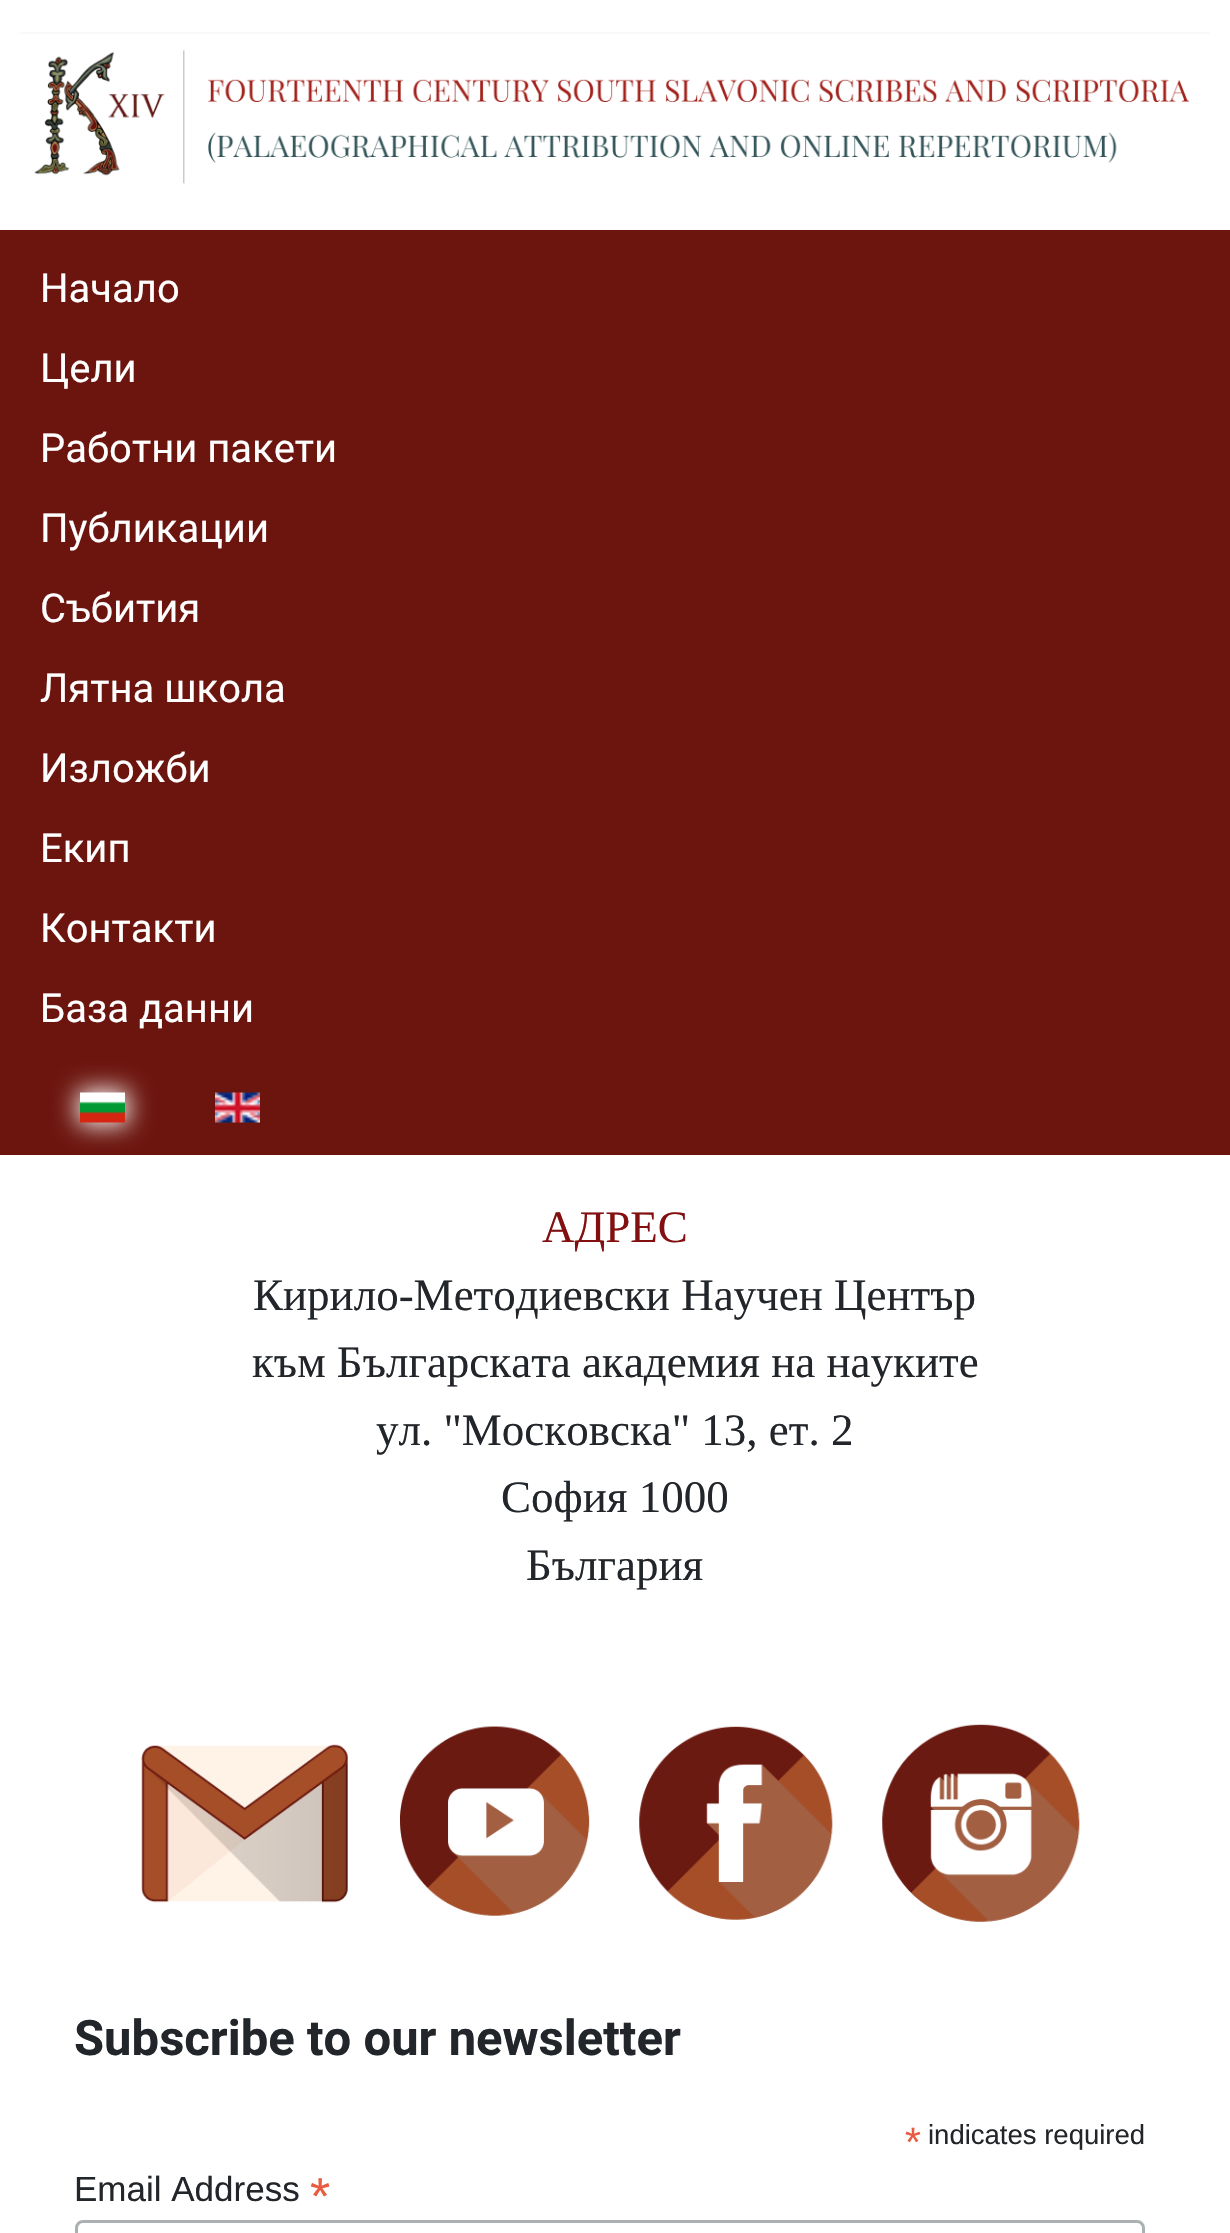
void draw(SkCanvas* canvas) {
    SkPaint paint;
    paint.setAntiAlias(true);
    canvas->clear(0xFFFFFFFF);
    canvas->drawImageRect(SkImages::DeferredFromEncodedData(SkData::MakeFromFileName("img1.png")), SkRect::MakeXYWH(20, 32, 1190, 152), SkSamplingOptions());
    paint.setColor(0xFF6C150E);
    canvas->drawRect(SkRect::MakeXYWH(0, 230, 1230, 925), paint);
    SkFont font1(fontMgr->matchFamilyStyle("Roboto", SkFontStyle::Normal()), 40);
    font1.setSubpixel(true);
    paint.setColor(0xFFFFFFFF);
    canvas->drawString("Начало", 40, 302, font1, paint);
    canvas->drawString("Цели", 40, 382, font1, paint);
    canvas->drawString("Работни пакети", 40, 462, font1, paint);
    canvas->drawString("Публикации", 40, 542, font1, paint);
    canvas->drawString("Събития", 40, 622, font1, paint);
    canvas->drawString("Лятна школа", 40, 702, font1, paint);
    canvas->drawString("Изложби", 40, 782, font1, paint);
    canvas->drawString("Екип", 40, 862, font1, paint);
    canvas->drawString("Контакти", 40, 942, font1, paint);
    canvas->drawString("База данни", 40, 1022, font1, paint);
    paint.setMaskFilter(SkMaskFilter::MakeBlur(kNormal_SkBlurStyle, 12.5f));
    canvas->drawRect(SkRect::MakeXYWH(78, 1090, 50, 35), paint);
    paint.setMaskFilter(nullptr);
    canvas->drawImageRect(SkImages::DeferredFromEncodedData(SkData::MakeFromFileName("img2.png")), SkRect::MakeXYWH(80, 1092, 45, 31), SkSamplingOptions());
    canvas->drawImageRect(SkImages::DeferredFromEncodedData(SkData::MakeFromFileName("img3.png")), SkRect::MakeXYWH(215, 1092, 45, 31), SkSamplingOptions());
    SkFont font2(fontMgr->matchFamilyStyle("Liberation Serif", SkFontStyle::Normal()), 45);
    font2.setSubpixel(true);
    paint.setColor(0xFF821010);
    canvas->drawString("АДРЕС", 542, 1242, font2, paint);
    paint.setColor(0xFF22262A);
    canvas->drawString("Кирило-Методиевски Научен Център", 253, 1310, font2, paint);
    canvas->drawString("към Българската академия на науките", 252, 1377, font2, paint);
    canvas->drawString("ул. \"Московска\" 13, ет. 2", 376, 1445, font2, paint);
    canvas->drawString("София 1000", 501, 1512, font2, paint);
    canvas->drawString("България", 526, 1580, font2, paint);
    canvas->drawImageRect(SkImages::DeferredFromEncodedData(SkData::MakeFromFileName("img4.png")), SkRect::MakeXYWH(141, 1744, 207, 159), SkSamplingOptions());
    canvas->drawImageRect(SkImages::DeferredFromEncodedData(SkData::MakeFromFileName("img5.png")), SkRect::MakeXYWH(400, 1726, 190, 190), SkSamplingOptions());
    canvas->drawImageRect(SkImages::DeferredFromEncodedData(SkData::MakeFromFileName("img6.png")), SkRect::MakeXYWH(639, 1726, 194, 194), SkSamplingOptions());
    canvas->drawImageRect(SkImages::DeferredFromEncodedData(SkData::MakeFromFileName("img7.png")), SkRect::MakeXYWH(882, 1724, 198, 198), SkSamplingOptions());
    SkFont font3(fontMgr->matchFamilyStyle("Roboto", SkFontStyle::Bold()), 49);
    font3.setSubpixel(true);
    canvas->drawString("Subscribe to our newsletter", 74, 2055, font3, paint);
    SkFont font4(fontMgr->matchFamilyStyle("Liberation Sans", SkFontStyle::Normal()), 41);
    font4.setSubpixel(true);
    paint.setColor(0xFFE85C41);
    canvas->drawString("*", 905, 2156, font4, paint);
    SkFont font5(fontMgr->matchFamilyStyle("Liberation Sans", SkFontStyle::Normal()), 27.5f);
    font5.setSubpixel(true);
    paint.setColor(0xFF22262A);
    canvas->drawString("indicates required", 928, 2144, font5, paint);
    SkFont font6(fontMgr->matchFamilyStyle("Liberation Sans", SkFontStyle::Normal()), 35);
    font6.setSubpixel(true);
    canvas->drawString("Email Address", 74, 2201, font6, paint);
    SkFont font7(fontMgr->matchFamilyStyle("Liberation Sans", SkFontStyle::Normal()), 52);
    font7.setSubpixel(true);
    paint.setColor(0xFFE85C41);
    canvas->drawString("*", 310, 2214, font7, paint);
    paint.setStyle(SkPaint::kStroke_Style);
    paint.setStrokeWidth(3);
    paint.setColor(0xFFABB0B2);
    canvas->drawRoundRect(SkRect::MakeXYWH(76.5f, 2221.5f, 1067, 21), 6.5f, 6.5f, paint);
}
